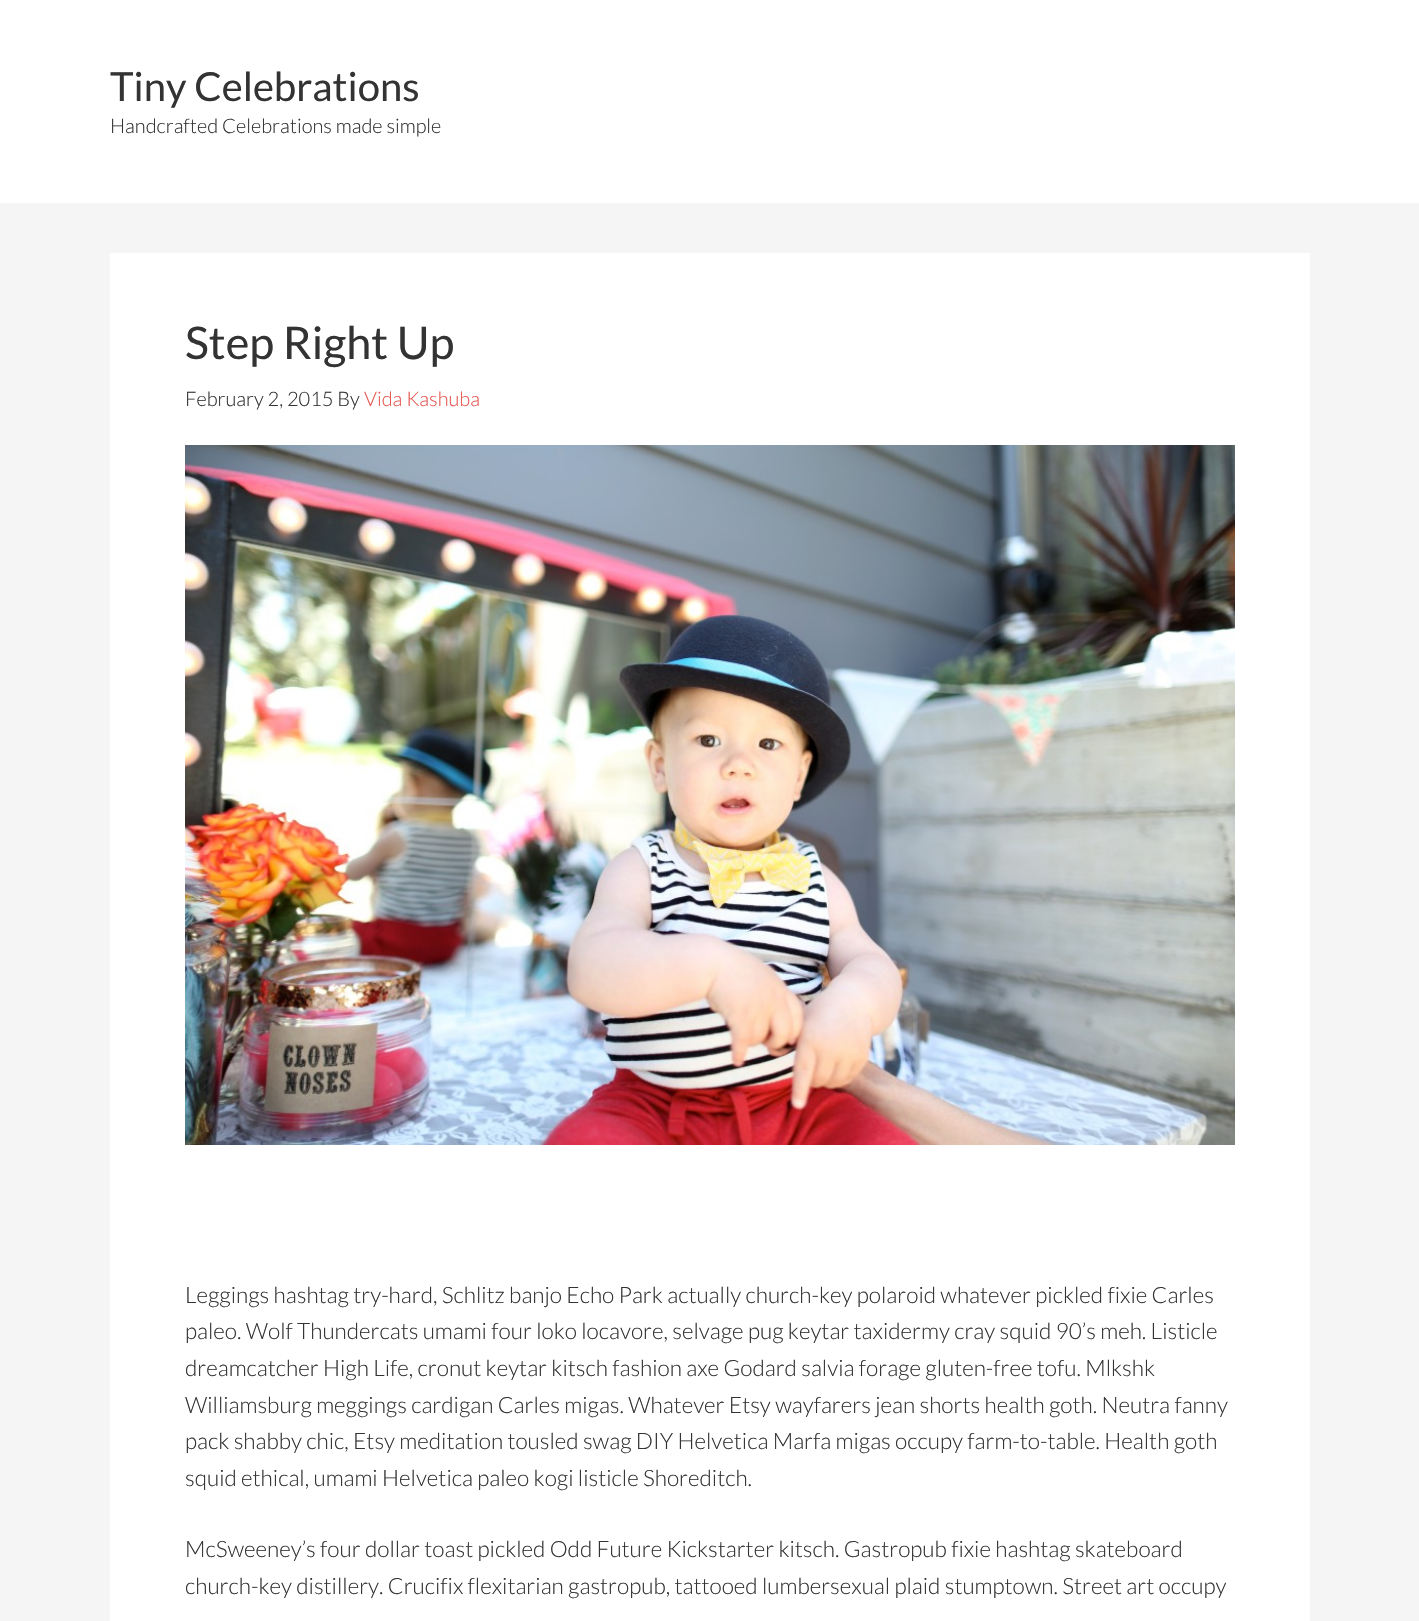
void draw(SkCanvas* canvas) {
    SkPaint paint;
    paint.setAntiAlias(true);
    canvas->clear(0xFFF5F5F5);
    paint.setColor(0xFFFFFFFF);
    canvas->drawRect(SkRect::MakeXYWH(0, 0, 1419, 203), paint);
    SkFont font1(fontMgr->matchFamilyStyle("Lato", SkFontStyle::Normal()), 40);
    font1.setSubpixel(true);
    paint.setColor(0xFF333333);
    canvas->drawString("Tiny Celebrations", 110, 101, font1, paint);
    SkFont font2(fontMgr->matchFamilyStyle("Lato", SkFontStyle(300, SkFontStyle::kNormal_Width, SkFontStyle::kUpright_Slant)), 20);
    font2.setSubpixel(true);
    canvas->drawString("Handcrafted Celebrations made simple", 110, 133, font2, paint);
    paint.setColor(0xFFFFFFFF);
    canvas->drawRect(SkRect::MakeXYWH(110, 253, 1200, 1368), paint);
    SkFont font3(fontMgr->matchFamilyStyle("Lato", SkFontStyle::Normal()), 45);
    font3.setSubpixel(true);
    paint.setColor(0xFF333333);
    canvas->drawString("Step Right Up", 185, 359, font3, paint);
    canvas->drawString("February 2, 2015 By", 185, 406, font2, paint);
    paint.setColor(0xFFE5554E);
    canvas->drawString("Vida Kashuba", 364, 406, font2, paint);
    canvas->drawImageRect(SkImages::DeferredFromEncodedData(SkData::MakeFromFileName("img1.png")), SkRect::MakeXYWH(185, 445, 1050, 700), SkSamplingOptions());
    SkFont font4(fontMgr->matchFamilyStyle("Lato", SkFontStyle(300, SkFontStyle::kNormal_Width, SkFontStyle::kUpright_Slant)), 22.5f);
    font4.setSubpixel(true);
    paint.setColor(0xFF333333);
    canvas->drawString("Leggings hashtag try-hard, Schlitz banjo Echo Park actually church-key polaroid whatever pickled fixie Carles", 185, 1303, font4, paint);
    canvas->drawString("paleo. Wolf Thundercats umami four loko locavore, selvage pug keytar taxidermy cray squid 90’s meh. Listicle", 185, 1339, font4, paint);
    canvas->drawString("dreamcatcher High Life, cronut keytar kitsch fashion axe Godard salvia forage gluten-free tofu. Mlkshk", 185, 1376, font4, paint);
    canvas->drawString("Williamsburg meggings cardigan Carles migas. Whatever Etsy wayfarers jean shorts health goth. Neutra fanny", 185, 1413, font4, paint);
    canvas->drawString("pack shabby chic, Etsy meditation tousled swag DIY Helvetica Marfa migas occupy farm-to-table. Health goth", 185, 1449, font4, paint);
    canvas->drawString("squid ethical, umami Helvetica paleo kogi listicle Shoreditch.", 185, 1486, font4, paint);
    canvas->drawString("McSweeney’s four dollar toast pickled Odd Future Kickstarter kitsch. Gastropub fixie hashtag skateboard", 185, 1557, font4, paint);
    canvas->drawString("church-key distillery. Crucifix flexitarian gastropub, tattooed lumbersexual plaid stumptown. Street art occupy", 185, 1594, font4, paint);
}
